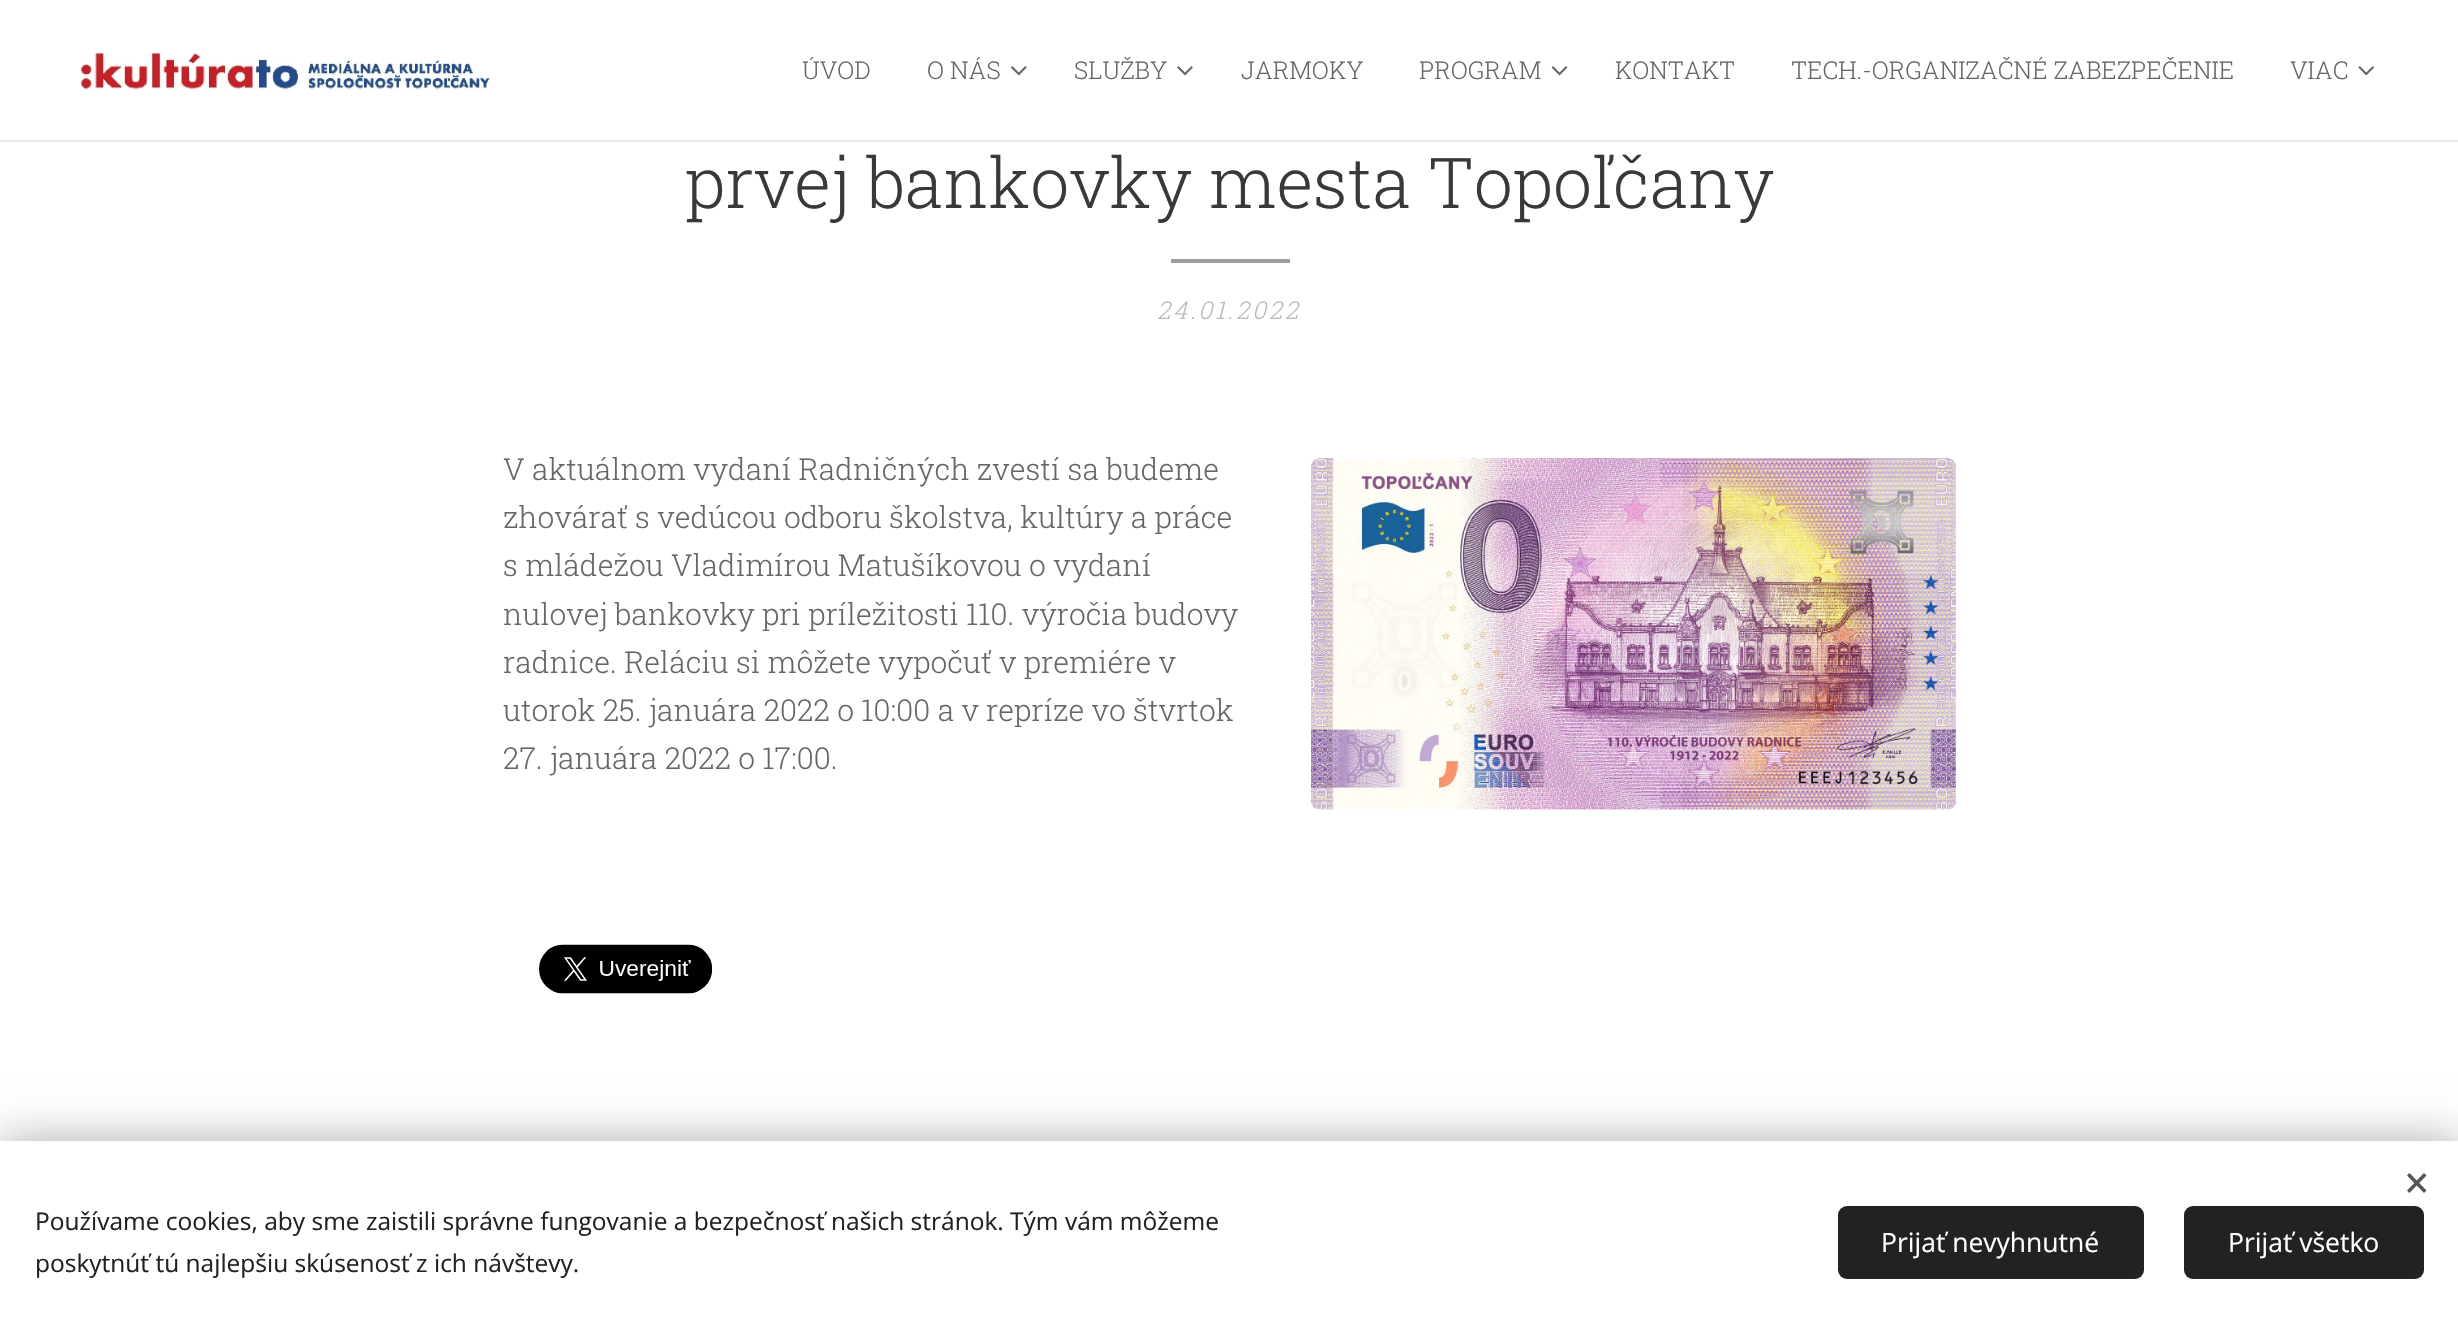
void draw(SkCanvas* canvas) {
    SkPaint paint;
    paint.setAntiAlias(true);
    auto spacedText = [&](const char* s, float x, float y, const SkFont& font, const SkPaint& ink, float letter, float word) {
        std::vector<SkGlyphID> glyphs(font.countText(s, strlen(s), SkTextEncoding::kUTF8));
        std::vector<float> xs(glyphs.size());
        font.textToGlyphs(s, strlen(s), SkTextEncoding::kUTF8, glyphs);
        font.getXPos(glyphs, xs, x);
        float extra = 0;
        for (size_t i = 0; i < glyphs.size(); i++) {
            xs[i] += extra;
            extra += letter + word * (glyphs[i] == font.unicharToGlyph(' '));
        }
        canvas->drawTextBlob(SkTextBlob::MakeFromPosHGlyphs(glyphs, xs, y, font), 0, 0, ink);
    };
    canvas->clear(0xFFFFFFFF);
    paint.setColor(0xFFE8E8E8);
    canvas->drawRect(SkRect::MakeXYWH(0, 140, 2458, 2), paint);
    canvas->drawImageRect(SkImages::DeferredFromEncodedData(SkData::MakeFromFileName("img1.png")), SkRect::MakeXYWH(80, 52, 410, 39), SkSamplingOptions());
    SkFont font1(fontMgr->matchFamilyStyle("Roboto Slab", SkFontStyle(300, SkFontStyle::kNormal_Width, SkFontStyle::kUpright_Slant)), 24.5f);
    font1.setSubpixel(true);
    paint.setColor(0xFF666666);
    canvas->drawString("ÚVOD", 802, 79, font1, paint);
    canvas->drawString("O NÁS", 927, 79, font1, paint);
    canvas->drawImageRect(SkImages::DeferredFromEncodedData(SkData::MakeFromFileName("img2.png")), SkRect::MakeXYWH(1011, 66, 16, 10), SkSamplingOptions());
    canvas->drawString("SLUŽBY", 1074, 79, font1, paint);
    canvas->drawImageRect(SkImages::DeferredFromEncodedData(SkData::MakeFromFileName("img3.png")), SkRect::MakeXYWH(1177, 66, 16, 10), SkSamplingOptions());
    canvas->drawString("JARMOKY", 1241, 79, font1, paint);
    canvas->drawString("PROGRAM", 1419, 79, font1, paint);
    canvas->drawImageRect(SkImages::DeferredFromEncodedData(SkData::MakeFromFileName("img4.png")), SkRect::MakeXYWH(1551, 66, 17, 10), SkSamplingOptions());
    canvas->drawString("KONTAKT", 1615, 79, font1, paint);
    canvas->drawString("TECH.-ORGANIZAČNÉ ZABEZPEČENIE", 1791, 79, font1, paint);
    canvas->drawString("VIAC", 2290, 79, font1, paint);
    canvas->drawImageRect(SkImages::DeferredFromEncodedData(SkData::MakeFromFileName("img5.png")), SkRect::MakeXYWH(2358, 66, 16, 10), SkSamplingOptions());
    SkFont font2(fontMgr->matchFamilyStyle("Roboto Slab", SkFontStyle(300, SkFontStyle::kNormal_Width, SkFontStyle::kUpright_Slant)), 70);
    font2.setSubpixel(true);
    paint.setColor(0xFF393939);
    canvas->drawString("prvej bankovky mesta Topoľčany", 685, 208, font2, paint);
    paint.setColor(0xFF9D9D9D);
    canvas->drawRect(SkRect::MakeXYWH(1171, 259, 119, 4), paint);
    SkFont font3(fontMgr->matchFamilyStyle("Roboto Slab", SkFontStyle(300, SkFontStyle::kNormal_Width, SkFontStyle::kItalic_Slant)), 24.5f);
    font3.setSubpixel(true);
    paint.setColor(0xFFBABABA);
    spacedText("24.01.2022", 1157, 319, font3, paint, 2.75f, 0);
    SkFont font4(fontMgr->matchFamilyStyle("Roboto Slab", SkFontStyle(300, SkFontStyle::kNormal_Width, SkFontStyle::kUpright_Slant)), 30.1f);
    font4.setSubpixel(true);
    paint.setColor(0xFF666666);
    canvas->drawString("V aktuálnom vydaní Radničných zvestí sa budeme", 503, 480, font4, paint);
    canvas->drawString("zhovárať s vedúcou odboru", 503, 528, font4, paint);
    canvas->drawString("školstva, kultúry a práce", 889, 528, font4, paint);
    canvas->drawString("s mládežou Vladimírou Matušíkovou o vydaní", 503, 576, font4, paint);
    canvas->drawString("nulovej bankovky pri príležitosti 110. výročia budovy", 503, 625, font4, paint);
    canvas->drawString("radnice. Reláciu si môžete vypočuť v premiére v", 503, 673, font4, paint);
    canvas->drawString("utorok 25. januára 2022 o 10:00 a v", 503, 721, font4, paint);
    canvas->drawString("repríze vo štvrtok", 986, 721, font4, paint);
    canvas->drawString("27. januára 2022 o 17:00.", 503, 769, font4, paint);
    canvas->drawImageRect(SkImages::DeferredFromEncodedData(SkData::MakeFromFileName("img6.png")), SkRect::MakeXYWH(1311, 458, 646, 352), SkSamplingOptions());
    canvas->drawImageRect(SkImages::DeferredFromEncodedData(SkData::MakeFromFileName("img7.png")), SkRect::MakeXYWH(539, 944, 174, 50), SkSamplingOptions());
    paint.setColor(0x54000000);
    paint.setMaskFilter(SkMaskFilter::MakeBlur(kNormal_SkBlurStyle, 22));
    canvas->drawRect(SkRect::MakeXYWH(0, 1141, 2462, 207), paint);
    paint.setMaskFilter(nullptr);
    paint.setColor(0xFFFFFFFF);
    canvas->drawRect(SkRect::MakeXYWH(0, 1141, 2458, 203), paint);
    paint.setColor(0xFF555555);
    canvas->drawPath(SkPathBuilder().moveTo(2407, 1190.5f).lineTo(2424, 1173).lineTo(2426.5f, 1175.5f).lineTo(2409.5f, 1193).close().detach(), paint);
    canvas->drawPath(SkPathBuilder().moveTo(2409.5f, 1173).lineTo(2426.5f, 1190.5f).lineTo(2424, 1193).lineTo(2407, 1175.5f).close().detach(), paint);
    SkFont font5(fontMgr->matchFamilyStyle("Open Sans", SkFontStyle::Normal()), 24.5f);
    font5.setSubpixel(true);
    paint.setColor(0xFF222222);
    canvas->drawString("Používame cookies, aby sme zaistili správne fungovanie a bezpečnosť našich stránok. Tým vám môžeme", 35, 1230, font5, paint);
    canvas->drawString("poskytnúť tú najlepšiu skúsenosť z ich návštevy.", 35, 1272, font5, paint);
    canvas->drawRoundRect(SkRect::MakeXYWH(1838, 1206, 306, 73), 9, 9, paint);
    SkFont font6(fontMgr->matchFamilyStyle("Open Sans", SkFontStyle::Normal()), 26.5f);
    font6.setSubpixel(true);
    paint.setColor(0xFFFFFFFF);
    canvas->drawString("Prijať nevyhnutné", 1881, 1252, font6, paint);
    paint.setColor(0xFF222222);
    canvas->drawRoundRect(SkRect::MakeXYWH(2184, 1206, 240, 73), 9, 9, paint);
    paint.setColor(0xFFFFFFFF);
    canvas->drawString("Prijať všetko", 2228, 1252, font6, paint);
}
